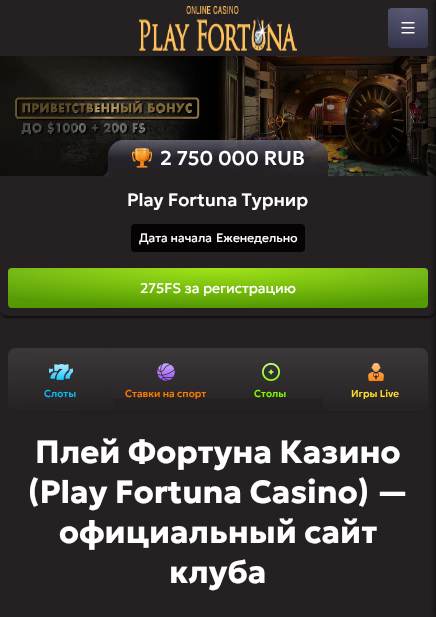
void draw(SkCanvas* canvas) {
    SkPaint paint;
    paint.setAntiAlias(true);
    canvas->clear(0xFF252122);
    canvas->drawImageRect(SkImages::DeferredFromEncodedData(SkData::MakeFromFileName("img1.png")), SkRect::MakeXYWH(139, 6, 158, 45), SkSamplingOptions());
    {
        const SkColor colors[] = {0xFF484868, 0xFF33334A};
        const float stops[] = {0, 1};
        paint.setShader(SkGradientShader::MakeRadial({408, 8}, 40, colors, stops, 2, SkTileMode::kClamp));
        paint.setAlpha(255);
    }
    canvas->drawRoundRect(SkRect::MakeXYWH(388, 8, 40, 40), 4, 4, paint);
    {
        const SkColor colors[] = {0x1AFFFFFF, 0x00FFFFFF};
        const float stops[] = {0, 1};
        const SkPoint ends[] = {{408, 8}, {408, 48}};
        paint.setShader(SkGradientShader::MakeLinear(ends, colors, stops, 2, SkTileMode::kClamp));
        paint.setAlpha(255);
    }
    canvas->drawRoundRect(SkRect::MakeXYWH(388, 8, 40, 40), 4, 4, paint);
    canvas->drawImageRect(SkImages::DeferredFromEncodedData(SkData::MakeFromFileName("img2.png")), SkRect::MakeXYWH(401, 22, 14, 12), SkSamplingOptions());
    paint.setShader(nullptr);
    paint.setColor(0x99000000);
    paint.setMaskFilter(SkMaskFilter::MakeBlur(kNormal_SkBlurStyle, 1));
    canvas->drawRoundRect(SkRect::MakeXYWH(0, 178, 436, 140), 8, 8, paint);
    paint.setMaskFilter(nullptr);
    canvas->drawImageRect(SkImages::DeferredFromEncodedData(SkData::MakeFromFileName("img3.png")), SkRect::MakeXYWH(0, 56, 436, 120), SkSamplingOptions());
    paint.setColor(0xFF252122);
    canvas->drawPath(SkPathBuilder().moveTo(0, 176).lineTo(436, 176).lineTo(436, 308).cubicTo(436, 312.5f, 432.5f, 316, 428, 316).lineTo(8, 316).cubicTo(3.5f, 316, 0, 312.5f, 0, 308).close().detach(), paint);
    {
        const SkColor colors[] = {0xFF96E000, 0xFF529900};
        const float stops[] = {0, 1};
        SkMatrix m = SkMatrix::Translate(218, 268).preScale(312, 40);
        paint.setShader(SkGradientShader::MakeRadial({0, 0}, 1, colors, stops, 2, SkTileMode::kClamp, 0, &m));
        paint.setAlpha(255);
    }
    canvas->drawRoundRect(SkRect::MakeXYWH(8, 268, 420, 40), 4, 4, paint);
    {
        const SkColor colors[] = {0x1AFFFFFF, 0x00FFFFFF};
        const float stops[] = {0, 1};
        const SkPoint ends[] = {{218, 268}, {218, 308}};
        paint.setShader(SkGradientShader::MakeLinear(ends, colors, stops, 2, SkTileMode::kClamp));
        paint.setAlpha(255);
    }
    canvas->drawRoundRect(SkRect::MakeXYWH(8, 268, 420, 40), 4, 4, paint);
    paint.setShader(nullptr);
    paint.setColor(0xFF1F1C1D);
    canvas->drawPath(SkPathBuilder().moveTo(8, 404).lineTo(8, 405).cubicTo(8, 409, 12, 413, 16, 413).lineTo(420, 413).cubicTo(424, 413, 428, 409, 428, 405).lineTo(428, 404).cubicTo(428, 408, 424, 412, 420, 412).lineTo(16, 412).cubicTo(12, 412, 8, 408, 8, 404).close().detach(), paint);
    canvas->drawImageRect(SkImages::DeferredFromEncodedData(SkData::MakeFromFileName("img10.png")), SkRect::MakeXYWH(368, 363, 16, 18), SkSamplingOptions());
    {
        const SkColor colors[] = {0x1AFFFFFF, 0x00FFFFFF};
        const float stops[] = {0, 1};
        const SkPoint ends[] = {{376, 348}, {376, 412}};
        paint.setShader(SkGradientShader::MakeLinear(ends, colors, stops, 2, SkTileMode::kClamp));
        paint.setAlpha(255);
    }
    canvas->drawPath(SkPathBuilder().moveTo(323, 348).lineTo(420, 348).cubicTo(424.5f, 348, 428, 351.5f, 428, 356).lineTo(428, 412).lineTo(331, 412).cubicTo(326.5f, 412, 323, 408.5f, 323, 404).close().detach(), paint);
    paint.setShader(nullptr);
    paint.setColor(0x80000000);
    paint.setMaskFilter(SkMaskFilter::MakeBlur(kNormal_SkBlurStyle, 2.5f));
    canvas->drawRect(SkRect::MakeXYWH(434, 0, 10, 617), paint);
    paint.setMaskFilter(nullptr);
    canvas->drawImageRect(SkImages::DeferredFromEncodedData(SkData::MakeFromFileName("img4.png")), SkRect::MakeXYWH(132, 148, 20, 20), SkSamplingOptions());
    {
        const SkColor colors[] = {0x33FFFFFF, 0x00FFFFFF};
        const float stops[] = {0, 0.5f};
        const SkPoint ends[] = {{218, 140}, {218, 176}};
        paint.setShader(SkGradientShader::MakeLinear(ends, colors, stops, 2, SkTileMode::kClamp));
        paint.setAlpha(255);
    }
    canvas->drawPath(SkPathBuilder().moveTo(124, 140).lineTo(312, 140).cubicTo(321, 140, 328, 147, 328, 156).lineTo(328, 176).lineTo(108, 176).lineTo(108, 156).cubicTo(108, 147, 115, 140, 124, 140).close().detach(), paint);
    SkFont font1(fontMgr->matchFamilyStyle("Geologica", SkFontStyle(500, SkFontStyle::kNormal_Width, SkFontStyle::kUpright_Slant)), 20);
    font1.setSubpixel(true);
    paint.setShader(nullptr);
    paint.setColor(0xFFFFFFFF);
    canvas->drawString("2 750 000 RUB", 160, 165, font1, paint);
    canvas->drawImageRect(SkImages::DeferredFromEncodedData(SkData::MakeFromFileName("img5.png")), SkRect::MakeXYWH(99, 167, 10, 10), SkSamplingOptions());
    canvas->drawImageRect(SkImages::DeferredFromEncodedData(SkData::MakeFromFileName("img6.png")), SkRect::MakeXYWH(329, 166, 10, 11), SkSamplingOptions());
    SkFont font2(fontMgr->matchFamilyStyle("Geologica", SkFontStyle(500, SkFontStyle::kNormal_Width, SkFontStyle::kUpright_Slant)), 18);
    font2.setSubpixel(true);
    canvas->drawString("Play Fortuna Турнир", 127, 206, font2, paint);
    paint.setColor(0xFF070304);
    canvas->drawRoundRect(SkRect::MakeXYWH(131, 224, 174, 28), 4, 4, paint);
    SkFont font3(fontMgr->matchFamilyStyle("Geologica", SkFontStyle::Normal()), 12);
    font3.setSubpixel(true);
    paint.setColor(0xFFFFFFFF);
    canvas->drawString("Дата начала", 139, 242, font3, paint);
    canvas->drawString("Еженедельно", 216, 242, font3, paint);
    SkFont font4(fontMgr->matchFamilyStyle("Geologica", SkFontStyle::Normal()), 14);
    font4.setSubpixel(true);
    canvas->drawString("275FS за регистрацию", 140, 293, font4, paint);
    canvas->drawImageRect(SkImages::DeferredFromEncodedData(SkData::MakeFromFileName("img7.png")), SkRect::MakeXYWH(49, 364, 24, 16), SkSamplingOptions());
    {
        const SkColor colors[] = {0x1AFFFFFF, 0x00FFFFFF};
        const float stops[] = {0, 1};
        const SkPoint ends[] = {{60, 348}, {61, 412}};
        paint.setShader(SkGradientShader::MakeLinear(ends, colors, stops, 2, SkTileMode::kClamp));
        paint.setAlpha(255);
    }
    canvas->drawPath(SkPathBuilder().moveTo(16, 348).lineTo(113, 348).lineTo(113, 404).cubicTo(113, 408.5f, 109.5f, 412, 105, 412).lineTo(8, 412).lineTo(8, 356).cubicTo(8, 351.5f, 11.5f, 348, 16, 348).close().detach(), paint);
    SkFont font5(fontMgr->matchFamilyStyle("Geologica", SkFontStyle(500, SkFontStyle::kNormal_Width, SkFontStyle::kUpright_Slant)), 10);
    font5.setSubpixel(true);
    paint.setShader(nullptr);
    paint.setColor(0xFF07BCF7);
    canvas->drawString("Слоты", 44, 397, font5, paint);
    canvas->drawImageRect(SkImages::DeferredFromEncodedData(SkData::MakeFromFileName("img8.png")), SkRect::MakeXYWH(157, 363, 18, 18), SkSamplingOptions());
    {
        const SkColor colors[] = {0x1AFFFFFF, 0x00FFFFFF};
        const float stops[] = {0, 1};
        const SkPoint ends[] = {{166, 348}, {166, 412}};
        paint.setShader(SkGradientShader::MakeLinear(ends, colors, stops, 2, SkTileMode::kClamp));
        paint.setAlpha(255);
    }
    canvas->drawRect(SkRect::MakeXYWH(113, 348, 105, 50), paint);
    paint.setShader(nullptr);
    paint.setColor(0xFFFB7903);
    canvas->drawString("Ставки на спорт", 125, 397, font5, paint);
    canvas->drawImageRect(SkImages::DeferredFromEncodedData(SkData::MakeFromFileName("img9.png")), SkRect::MakeXYWH(262, 363, 18, 18), SkSamplingOptions());
    {
        const SkColor colors[] = {0x1AFFFFFF, 0x00FFFFFF};
        const float stops[] = {0, 1};
        const SkPoint ends[] = {{271, 348}, {271, 412}};
        paint.setShader(SkGradientShader::MakeLinear(ends, colors, stops, 2, SkTileMode::kClamp));
        paint.setAlpha(255);
    }
    canvas->drawRect(SkRect::MakeXYWH(218, 348, 105, 50), paint);
    paint.setShader(nullptr);
    paint.setColor(0xFF7DFA00);
    canvas->drawString("Столы", 254, 397, font5, paint);
    paint.setColor(0xFFFFDE26);
    canvas->drawString("Игры Live", 351, 397, font5, paint);
    SkFont font6(fontMgr->matchFamilyStyle("Geologica", SkFontStyle::Bold()), 32);
    font6.setSubpixel(true);
    paint.setColor(0xFFFFFFFF);
    canvas->drawString("Плей Фортуна Казино", 35, 463, font6, paint);
    canvas->drawString("(Play Fortuna Casino) —", 28, 503, font6, paint);
    canvas->drawString("официальный сайт", 59, 543, font6, paint);
    canvas->drawString("клуба", 169, 583, font6, paint);
}
